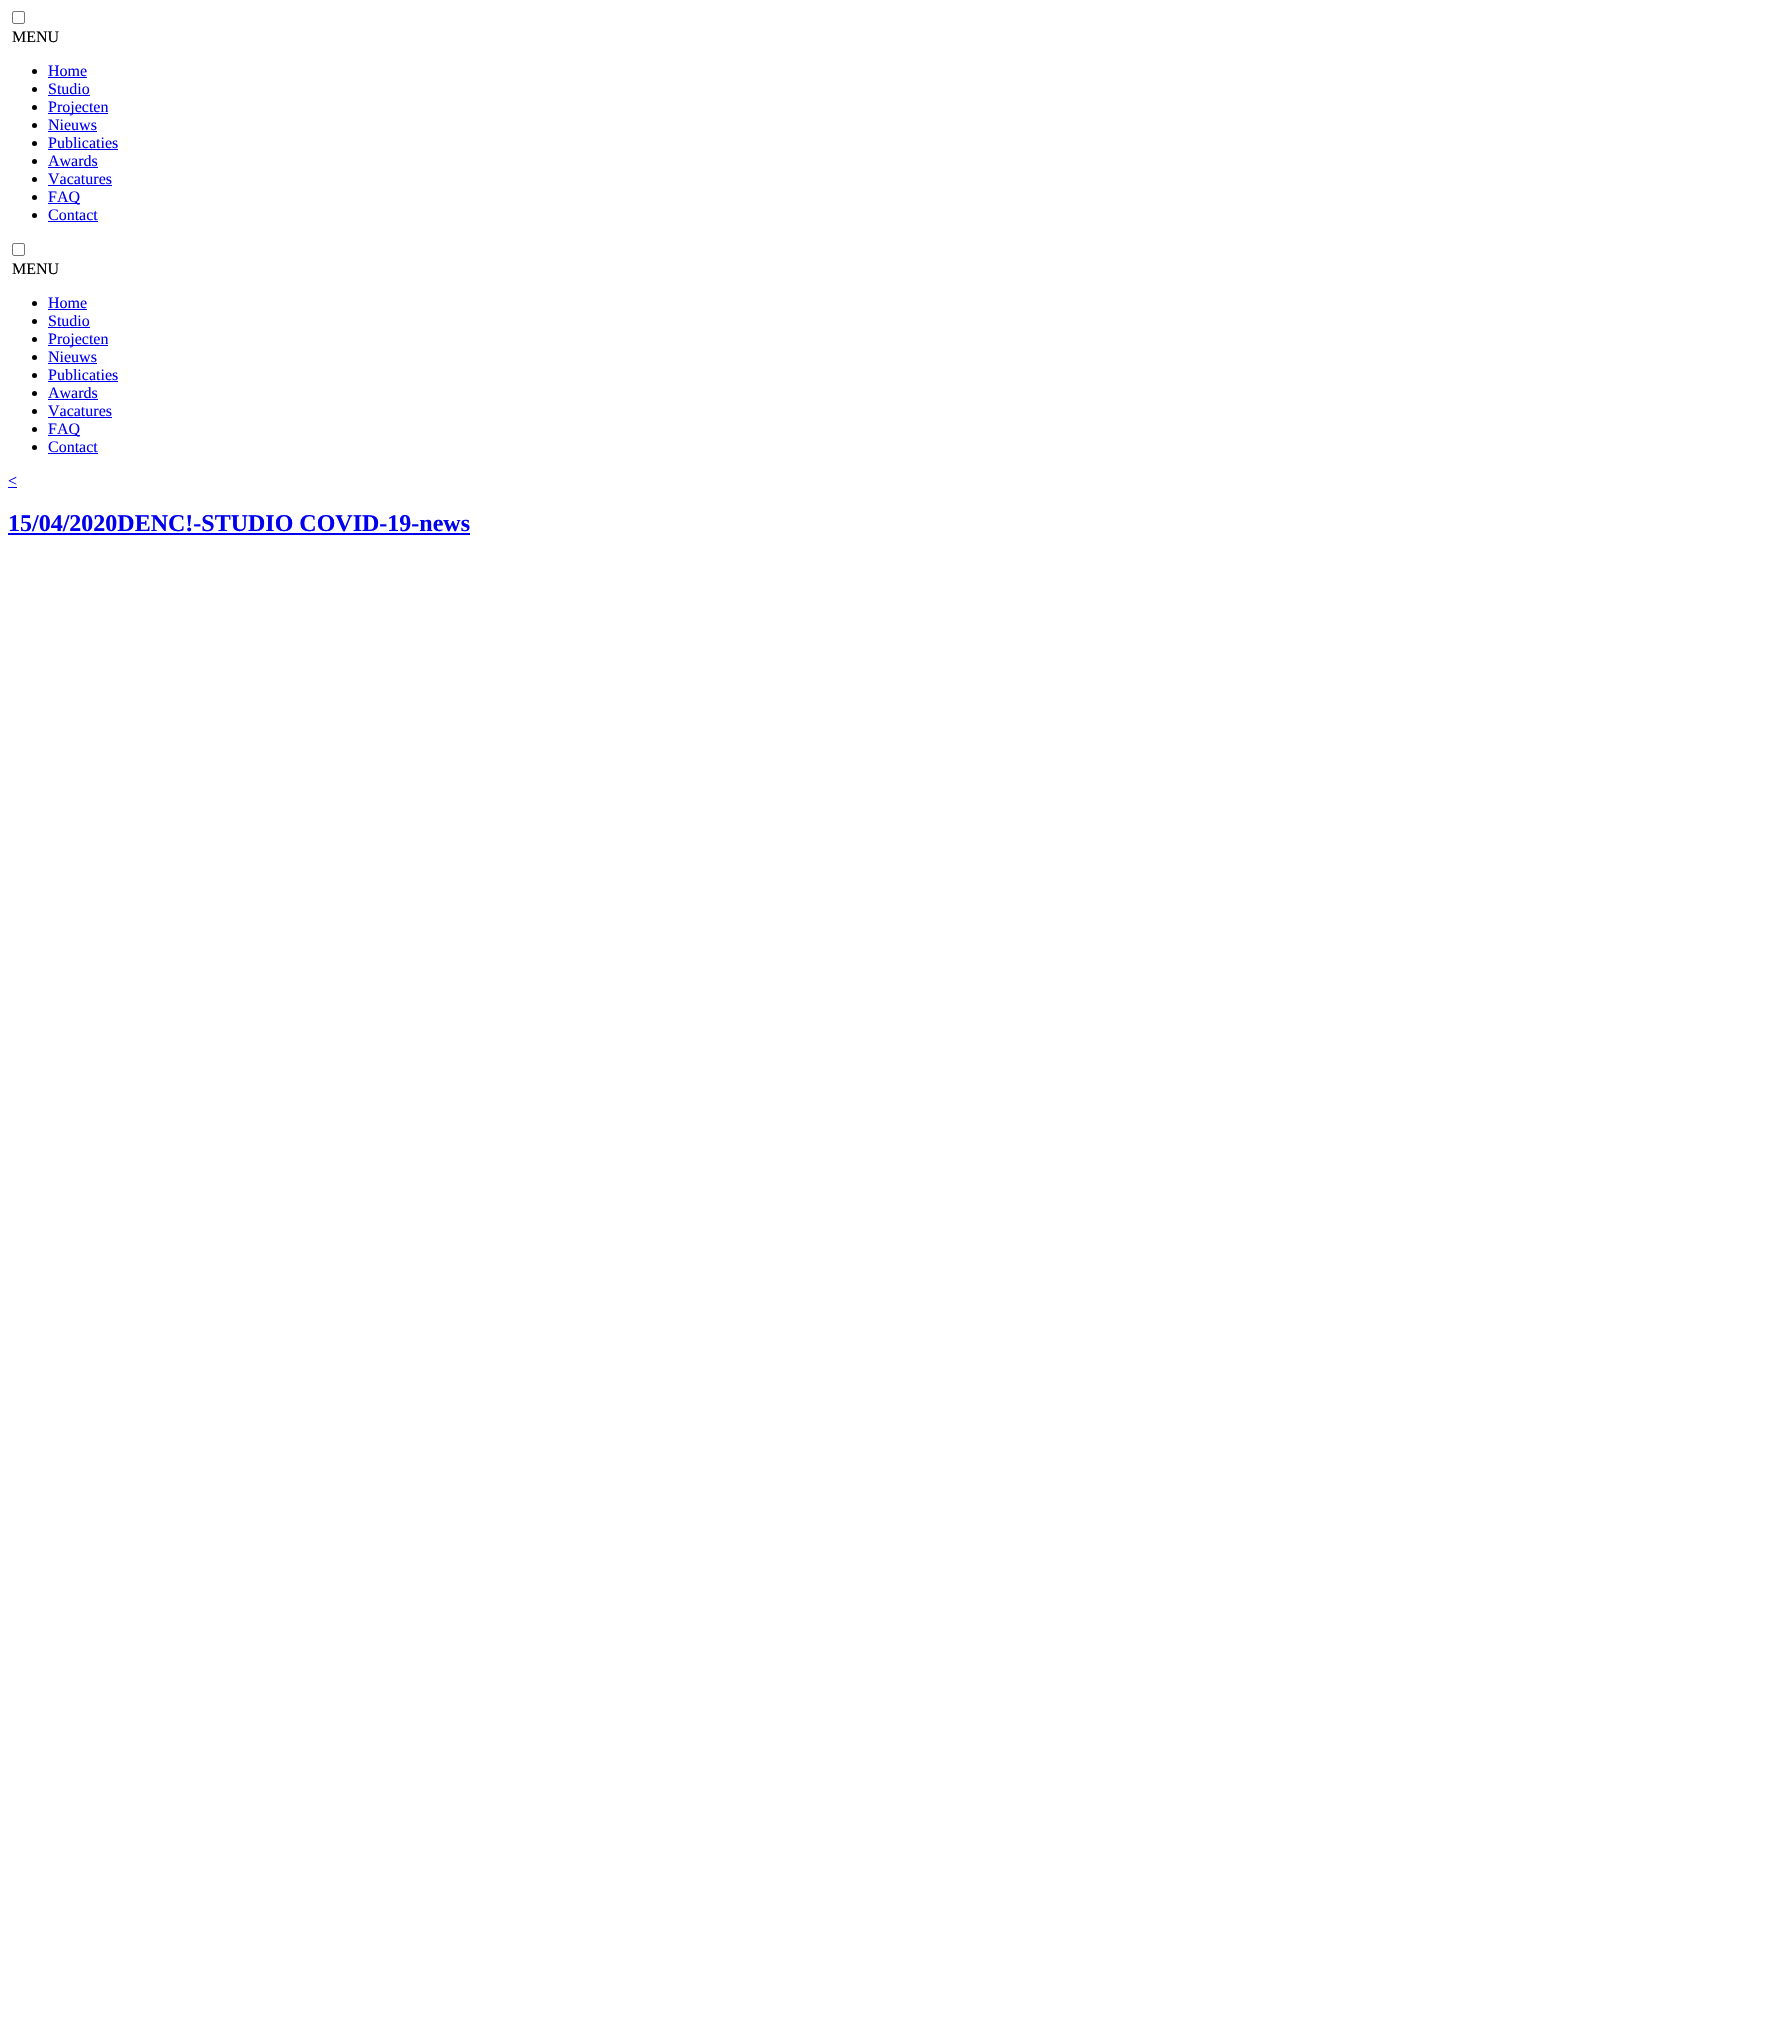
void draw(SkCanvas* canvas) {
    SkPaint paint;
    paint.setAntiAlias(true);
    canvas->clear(0xFFFFFFFF);
    paint.setStyle(SkPaint::kStroke_Style);
    paint.setStrokeWidth(1);
    paint.setColor(0xFF767676);
    canvas->drawRoundRect(SkRect::MakeXYWH(12.5f, 11.5f, 12, 12), 1.5f, 1.5f, paint);
    SkFont font1(fontMgr->matchFamilyStyle("Liberation Serif", SkFontStyle::Normal()), 16);
    font1.setSubpixel(true);
    paint.setStyle(SkPaint::kFill_Style);
    paint.setColor(0xFF000000);
    canvas->drawString("MENU", 12, 42, font1, paint);
    canvas->drawCircle(34.5f, 71.5f, 2.5f, paint);
    paint.setColor(0xFF0000EE);
    canvas->drawString("Home", 48, 76, font1, paint);
    canvas->drawRect(SkRect::MakeXYWH(48, 77, 39, 1), paint);
    paint.setColor(0xFF000000);
    canvas->drawCircle(34.5f, 89.5f, 2.5f, paint);
    paint.setColor(0xFF0000EE);
    canvas->drawString("Studio", 48, 94, font1, paint);
    canvas->drawRect(SkRect::MakeXYWH(48, 95, 42, 1), paint);
    paint.setColor(0xFF000000);
    canvas->drawCircle(34.5f, 107.5f, 2.5f, paint);
    paint.setColor(0xFF0000EE);
    canvas->drawRect(SkRect::MakeXYWH(48, 113, 60, 1), paint);
    canvas->drawString("Projecten", 48, 112, font1, paint);
    paint.setColor(0xFF000000);
    canvas->drawCircle(34.5f, 125.5f, 2.5f, paint);
    paint.setColor(0xFF0000EE);
    canvas->drawString("Nieuws", 48, 130, font1, paint);
    canvas->drawRect(SkRect::MakeXYWH(48, 131, 49, 1), paint);
    paint.setColor(0xFF000000);
    canvas->drawCircle(34.5f, 143.5f, 2.5f, paint);
    paint.setColor(0xFF0000EE);
    canvas->drawString("Publicaties", 48, 148, font1, paint);
    canvas->drawRect(SkRect::MakeXYWH(48, 149, 70, 1), paint);
    paint.setColor(0xFF000000);
    canvas->drawCircle(34.5f, 161.5f, 2.5f, paint);
    paint.setColor(0xFF0000EE);
    canvas->drawString("Awards", 48, 166, font1, paint);
    canvas->drawRect(SkRect::MakeXYWH(48, 167, 50, 1), paint);
    paint.setColor(0xFF000000);
    canvas->drawCircle(34.5f, 179.5f, 2.5f, paint);
    paint.setColor(0xFF0000EE);
    canvas->drawString("Vacatures", 48, 184, font1, paint);
    canvas->drawRect(SkRect::MakeXYWH(48, 185, 64, 1), paint);
    paint.setColor(0xFF000000);
    canvas->drawCircle(34.5f, 197.5f, 2.5f, paint);
    paint.setColor(0xFF0000EE);
    canvas->drawRect(SkRect::MakeXYWH(48, 203, 32, 1), paint);
    canvas->drawString("FAQ", 48, 202, font1, paint);
    paint.setColor(0xFF000000);
    canvas->drawCircle(34.5f, 215.5f, 2.5f, paint);
    paint.setColor(0xFF0000EE);
    canvas->drawString("Contact", 48, 220, font1, paint);
    canvas->drawRect(SkRect::MakeXYWH(48, 221, 50, 1), paint);
    paint.setStyle(SkPaint::kStroke_Style);
    paint.setColor(0xFF767676);
    canvas->drawRoundRect(SkRect::MakeXYWH(12.5f, 243.5f, 12, 12), 1.5f, 1.5f, paint);
    paint.setStyle(SkPaint::kFill_Style);
    paint.setColor(0xFF000000);
    canvas->drawString("MENU", 12, 274, font1, paint);
    canvas->drawCircle(34.5f, 303.5f, 2.5f, paint);
    paint.setColor(0xFF0000EE);
    canvas->drawString("Home", 48, 308, font1, paint);
    canvas->drawRect(SkRect::MakeXYWH(48, 309, 39, 1), paint);
    paint.setColor(0xFF000000);
    canvas->drawCircle(34.5f, 321.5f, 2.5f, paint);
    paint.setColor(0xFF0000EE);
    canvas->drawString("Studio", 48, 326, font1, paint);
    canvas->drawRect(SkRect::MakeXYWH(48, 327, 42, 1), paint);
    paint.setColor(0xFF000000);
    canvas->drawCircle(34.5f, 339.5f, 2.5f, paint);
    paint.setColor(0xFF0000EE);
    canvas->drawRect(SkRect::MakeXYWH(48, 345, 60, 1), paint);
    canvas->drawString("Projecten", 48, 344, font1, paint);
    paint.setColor(0xFF000000);
    canvas->drawCircle(34.5f, 357.5f, 2.5f, paint);
    paint.setColor(0xFF0000EE);
    canvas->drawString("Nieuws", 48, 362, font1, paint);
    canvas->drawRect(SkRect::MakeXYWH(48, 363, 49, 1), paint);
    paint.setColor(0xFF000000);
    canvas->drawCircle(34.5f, 375.5f, 2.5f, paint);
    paint.setColor(0xFF0000EE);
    canvas->drawString("Publicaties", 48, 380, font1, paint);
    canvas->drawRect(SkRect::MakeXYWH(48, 381, 70, 1), paint);
    paint.setColor(0xFF000000);
    canvas->drawCircle(34.5f, 393.5f, 2.5f, paint);
    paint.setColor(0xFF0000EE);
    canvas->drawString("Awards", 48, 398, font1, paint);
    canvas->drawRect(SkRect::MakeXYWH(48, 399, 50, 1), paint);
    paint.setColor(0xFF000000);
    canvas->drawCircle(34.5f, 411.5f, 2.5f, paint);
    paint.setColor(0xFF0000EE);
    canvas->drawString("Vacatures", 48, 416, font1, paint);
    canvas->drawRect(SkRect::MakeXYWH(48, 417, 64, 1), paint);
    paint.setColor(0xFF000000);
    canvas->drawCircle(34.5f, 429.5f, 2.5f, paint);
    paint.setColor(0xFF0000EE);
    canvas->drawRect(SkRect::MakeXYWH(48, 435, 32, 1), paint);
    canvas->drawString("FAQ", 48, 434, font1, paint);
    paint.setColor(0xFF000000);
    canvas->drawCircle(34.5f, 447.5f, 2.5f, paint);
    paint.setColor(0xFF0000EE);
    canvas->drawString("Contact", 48, 452, font1, paint);
    canvas->drawRect(SkRect::MakeXYWH(48, 453, 50, 1), paint);
    canvas->drawString("<", 8, 486, font1, paint);
    canvas->drawRect(SkRect::MakeXYWH(8, 487, 9, 1), paint);
    SkFont font2(fontMgr->matchFamilyStyle("Liberation Serif", SkFontStyle::Bold()), 24);
    font2.setSubpixel(true);
    canvas->drawString("15/04/2020DENC!-STUDIO COVID-19-news", 8, 531, font2, paint);
    canvas->drawRect(SkRect::MakeXYWH(8, 533, 462, 2), paint);
}
